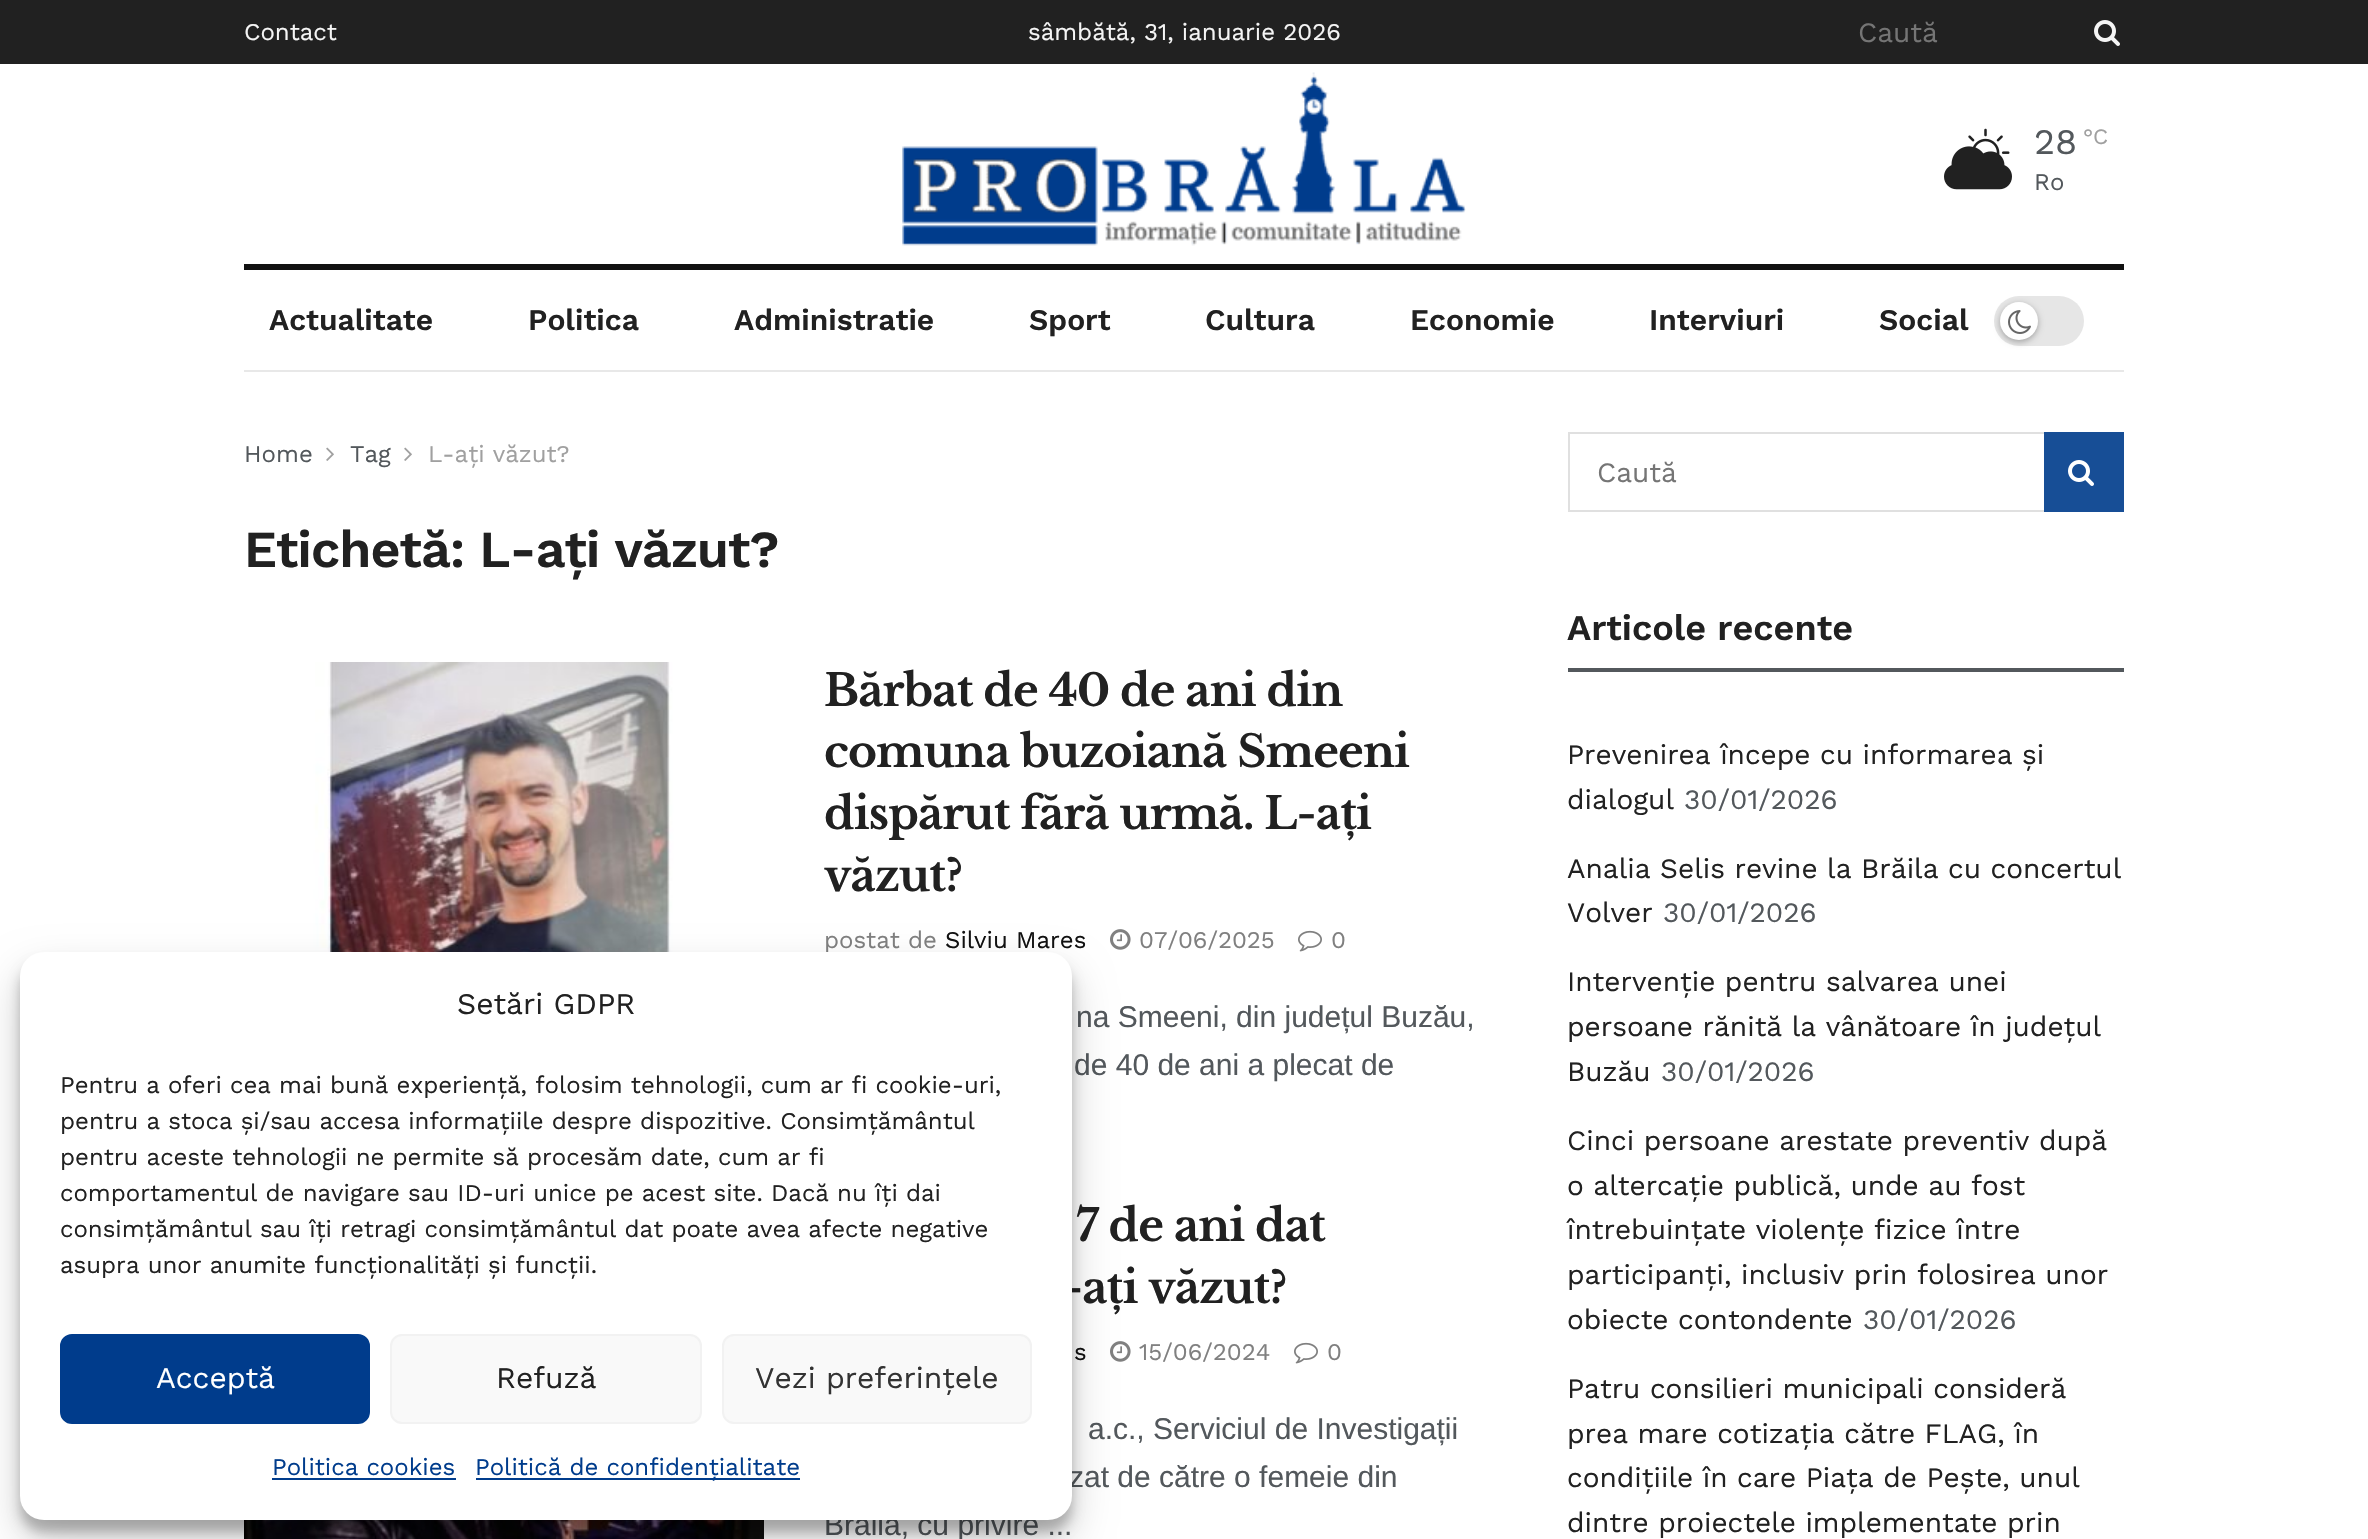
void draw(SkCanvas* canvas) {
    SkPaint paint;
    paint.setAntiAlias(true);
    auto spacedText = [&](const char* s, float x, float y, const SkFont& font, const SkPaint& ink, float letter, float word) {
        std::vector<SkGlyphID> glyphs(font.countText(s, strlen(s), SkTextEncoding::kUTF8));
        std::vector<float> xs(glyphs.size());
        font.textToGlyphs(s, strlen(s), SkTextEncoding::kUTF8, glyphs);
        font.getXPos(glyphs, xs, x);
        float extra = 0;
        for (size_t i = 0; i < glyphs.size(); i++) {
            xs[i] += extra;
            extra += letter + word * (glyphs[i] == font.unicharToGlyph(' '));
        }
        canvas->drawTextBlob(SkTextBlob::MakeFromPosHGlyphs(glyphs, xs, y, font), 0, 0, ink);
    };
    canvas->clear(0xFFFFFFFF);
    paint.setColor(0xFF212121);
    canvas->drawRect(SkRect::MakeXYWH(0, 0, 2368, 64), paint);
    SkFont font1(fontMgr->matchFamilyStyle("Work Sans", SkFontStyle::Normal()), 24);
    font1.setSubpixel(true);
    paint.setColor(0xFFF5F5F5);
    canvas->drawString("Contact", 244, 40, font1, paint);
    canvas->drawString("sâmbătă, 31, ianuarie 2026", 1028, 40, font1, paint);
    SkFont font2(fontMgr->matchFamilyStyle("Work Sans", SkFontStyle::Normal()), 28);
    font2.setSubpixel(true);
    paint.setColor(0xFF757575);
    canvas->drawString("Caută", 1858, 42, font2, paint);
    canvas->drawImageRect(SkImages::DeferredFromEncodedData(SkData::MakeFromFileName("img1.png")), SkRect::MakeXYWH(2094, 20, 26, 26), SkSamplingOptions());
    canvas->drawImageRect(SkImages::DeferredFromEncodedData(SkData::MakeFromFileName("img2.png")), SkRect::MakeXYWH(902, 72, 564, 174), SkSamplingOptions());
    canvas->drawImageRect(SkImages::DeferredFromEncodedData(SkData::MakeFromFileName("img3.png")), SkRect::MakeXYWH(1944, 128, 68, 62), SkSamplingOptions());
    SkFont font3(fontMgr->matchFamilyStyle("Work Sans", SkFontStyle::Normal()), 36);
    font3.setSubpixel(true);
    paint.setColor(0xFF53585C);
    canvas->drawString("28", 2034, 154, font3, paint);
    SkFont font4(fontMgr->matchFamilyStyle("Work Sans", SkFontStyle::Normal()), 22);
    font4.setSubpixel(true);
    paint.setColor(0xFFA0A0A0);
    canvas->drawString("°C", 2083, 144, font4, paint);
    paint.setColor(0xFF53585C);
    canvas->drawString("Ro", 2034, 190, font1, paint);
    paint.setColor(0xFF111111);
    canvas->drawRect(SkRect::MakeXYWH(244, 264, 1880, 6), paint);
    paint.setColor(0xFFE8E8E8);
    canvas->drawRect(SkRect::MakeXYWH(244, 370, 1880, 2), paint);
    SkFont font5(fontMgr->matchFamilyStyle("Work Sans", SkFontStyle(600, SkFontStyle::kNormal_Width, SkFontStyle::kUpright_Slant)), 30);
    font5.setSubpixel(true);
    paint.setColor(0xFF212121);
    canvas->drawString("Actualitate", 269, 330, font5, paint);
    canvas->drawString("Politica", 528, 330, font5, paint);
    canvas->drawString("Administratie", 734, 330, font5, paint);
    canvas->drawString("Sport", 1029, 330, font5, paint);
    canvas->drawString("Cultura", 1205, 330, font5, paint);
    canvas->drawString("Economie", 1410, 330, font5, paint);
    canvas->drawString("Interviuri", 1649, 330, font5, paint);
    canvas->drawString("Social", 1879, 330, font5, paint);
    paint.setColor(0xFFE6E6E6);
    canvas->drawRoundRect(SkRect::MakeXYWH(1994, 296, 90, 50), 25, 25, paint);
    paint.setColor(0x4D000000);
    paint.setMaskFilter(SkMaskFilter::MakeBlur(kNormal_SkBlurStyle, 3));
    canvas->drawRoundRect(SkRect::MakeXYWH(2000, 304, 38, 38), 19, 19, paint);
    paint.setMaskFilter(nullptr);
    paint.setColor(0xFFFFFFFF);
    canvas->drawCircle(2019, 321, 19, paint);
    canvas->drawImageRect(SkImages::DeferredFromEncodedData(SkData::MakeFromFileName("img4.png")), SkRect::MakeXYWH(2008, 310, 23, 24), SkSamplingOptions());
    paint.setColor(0xFF53585C);
    canvas->drawString("Home", 244, 462, font1, paint);
    canvas->drawImageRect(SkImages::DeferredFromEncodedData(SkData::MakeFromFileName("img5.png")), SkRect::MakeXYWH(326, 447, 8, 14), SkSamplingOptions());
    canvas->drawString("Tag", 350, 462, font1, paint);
    canvas->drawImageRect(SkImages::DeferredFromEncodedData(SkData::MakeFromFileName("img5.png")), SkRect::MakeXYWH(404, 447, 8, 14), SkSamplingOptions());
    paint.setColor(0xFFA0A0A0);
    canvas->drawString("L-ați văzut?", 428, 462, font1, paint);
    SkFont font6(fontMgr->matchFamilyStyle("Work Sans", SkFontStyle(600, SkFontStyle::kNormal_Width, SkFontStyle::kUpright_Slant)), 52);
    font6.setSubpixel(true);
    paint.setColor(0xFF212121);
    spacedText("Etichetă: L-ați văzut?", 244, 567, font6, paint, -1, 0);
    canvas->drawImageRect(SkImages::DeferredFromEncodedData(SkData::MakeFromFileName("img6.png")), SkRect::MakeXYWH(244, 662, 520, 290), SkSamplingOptions());
    SkFont font7(fontMgr->matchFamilyStyle("Libre Baskerville", SkFontStyle::Bold()), 44);
    font7.setSubpixel(true);
    spacedText("Bărbat de 40 de ani din", 824, 706, font7, paint, -0.9f, 0);
    spacedText("comuna buzoiană Smeeni", 824, 767, font7, paint, -0.9f, 0);
    spacedText("dispărut fără urmă. L-ați", 824, 829, font7, paint, -0.9f, 0);
    spacedText("văzut?", 824, 891, font7, paint, -0.9f, 0);
    paint.setColor(0xFF808080);
    canvas->drawString("postat de", 824, 948, font1, paint);
    paint.setColor(0xFF111111);
    canvas->drawString("Silviu Mares", 945, 948, font1, paint);
    canvas->drawImageRect(SkImages::DeferredFromEncodedData(SkData::MakeFromFileName("img7.png")), SkRect::MakeXYWH(1110, 929, 21, 21), SkSamplingOptions());
    paint.setColor(0xFF808080);
    canvas->drawString("07/06/2025", 1139, 948, font1, paint);
    canvas->drawImageRect(SkImages::DeferredFromEncodedData(SkData::MakeFromFileName("img8.png")), SkRect::MakeXYWH(1298, 930, 24, 22), SkSamplingOptions());
    canvas->drawString("0", 1331, 948, font1, paint);
    SkFont font8(fontMgr->matchFamilyStyle("Liberation Sans", SkFontStyle::Normal()), 30);
    font8.setSubpixel(true);
    paint.setColor(0xFF53585C);
    canvas->drawString("na Smeeni, din județul Buzău,", 1076, 1027, font8, paint);
    canvas->drawString("de 40 de ani a plecat de", 1074, 1075, font8, paint);
    canvas->drawImageRect(SkImages::DeferredFromEncodedData(SkData::MakeFromFileName("img9.png")), SkRect::MakeXYWH(244, 1520, 520, 19), SkSamplingOptions());
    paint.setColor(0xFF212121);
    spacedText("7 de ani dat", 1076, 1241, font7, paint, -0.9f, 0);
    spacedText("-ați văzut?", 1063, 1303, font7, paint, -0.9f, 0);
    paint.setColor(0xFF111111);
    canvas->drawString("s", 1074, 1360, font1, paint);
    canvas->drawImageRect(SkImages::DeferredFromEncodedData(SkData::MakeFromFileName("img7.png")), SkRect::MakeXYWH(1110, 1341, 21, 21), SkSamplingOptions());
    paint.setColor(0xFF808080);
    canvas->drawString("15/06/2024", 1139, 1360, font1, paint);
    canvas->drawImageRect(SkImages::DeferredFromEncodedData(SkData::MakeFromFileName("img8.png")), SkRect::MakeXYWH(1294, 1342, 24, 22), SkSamplingOptions());
    canvas->drawString("0", 1327, 1360, font1, paint);
    paint.setColor(0xFF53585C);
    canvas->drawString("a.c., Serviciul de Investigații", 1088, 1439, font8, paint);
    canvas->drawString("zat de către o femeie din", 1069, 1487, font8, paint);
    canvas->drawString("Brăila, cu privire ...", 824, 1535, font8, paint);
    paint.setStyle(SkPaint::kStroke_Style);
    paint.setStrokeWidth(2);
    paint.setColor(0xFFE0E0E0);
    canvas->drawRect(SkRect::MakeXYWH(1569, 433, 554, 78), paint);
    paint.setStyle(SkPaint::kFill_Style);
    paint.setColor(0xFF757575);
    canvas->drawString("Caută", 1597, 482, font2, paint);
    paint.setColor(0xFF174E96);
    canvas->drawRect(SkRect::MakeXYWH(2044, 432, 80, 80), paint);
    canvas->drawImageRect(SkImages::DeferredFromEncodedData(SkData::MakeFromFileName("img10.png")), SkRect::MakeXYWH(2068, 460, 26, 26), SkSamplingOptions());
    paint.setColor(0xFF53585C);
    canvas->drawRect(SkRect::MakeXYWH(1568, 668, 556, 4), paint);
    SkFont font9(fontMgr->matchFamilyStyle("Work Sans", SkFontStyle(600, SkFontStyle::kNormal_Width, SkFontStyle::kUpright_Slant)), 36);
    font9.setSubpixel(true);
    paint.setColor(0xFF212121);
    canvas->drawString("Articole recente", 1567, 640, font9, paint);
    canvas->drawString("Prevenirea începe cu informarea și", 1567, 764, font2, paint);
    canvas->drawString("dialogul", 1567, 809, font2, paint);
    paint.setColor(0xFF53585C);
    canvas->drawString("30/01/2026", 1684, 809, font2, paint);
    paint.setColor(0xFF212121);
    canvas->drawString("Analia Selis revine la Brăila cu concertul", 1567, 878, font2, paint);
    canvas->drawString("Volver", 1567, 922, font2, paint);
    paint.setColor(0xFF53585C);
    canvas->drawString("30/01/2026", 1663, 922, font2, paint);
    paint.setColor(0xFF212121);
    canvas->drawString("Intervenție pentru salvarea unei", 1567, 991, font2, paint);
    canvas->drawString("persoane rănită la vânătoare în județul", 1567, 1036, font2, paint);
    canvas->drawString("Buzău", 1567, 1081, font2, paint);
    paint.setColor(0xFF53585C);
    canvas->drawString("30/01/2026", 1661, 1081, font2, paint);
    paint.setColor(0xFF212121);
    canvas->drawString("Cinci persoane arestate preventiv după", 1567, 1150, font2, paint);
    canvas->drawString("o altercație publică, unde au fost", 1567, 1195, font2, paint);
    canvas->drawString("întrebuințate violențe fizice între", 1567, 1239, font2, paint);
    canvas->drawString("participanți, inclusiv prin folosirea unor", 1567, 1284, font2, paint);
    canvas->drawString("obiecte contondente", 1567, 1329, font2, paint);
    paint.setColor(0xFF53585C);
    canvas->drawString("30/01/2026", 1863, 1329, font2, paint);
    paint.setColor(0xFF212121);
    canvas->drawString("Patru consilieri municipali consideră", 1567, 1398, font2, paint);
    canvas->drawString("prea mare cotizația către FLAG, în", 1567, 1443, font2, paint);
    canvas->drawString("condițiile în care Piața de Pește, unul", 1567, 1487, font2, paint);
    canvas->drawString("dintre proiectele implementate prin", 1567, 1532, font2, paint);
    paint.setColor(0x3B000000);
    paint.setMaskFilter(SkMaskFilter::MakeBlur(kNormal_SkBlurStyle, 6));
    canvas->drawRoundRect(SkRect::MakeXYWH(20, 964, 1052, 568), 24, 24, paint);
    paint.setMaskFilter(nullptr);
    paint.setColor(0x30000000);
    paint.setMaskFilter(SkMaskFilter::MakeBlur(kNormal_SkBlurStyle, 20));
    canvas->drawRoundRect(SkRect::MakeXYWH(20, 972, 1052, 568), 24, 24, paint);
    paint.setMaskFilter(nullptr);
    paint.setColor(0xFFFFFFFF);
    canvas->drawRoundRect(SkRect::MakeXYWH(20, 952, 1052, 568), 24, 24, paint);
    SkFont font10(fontMgr->matchFamilyStyle("Work Sans", SkFontStyle::Normal()), 30);
    font10.setSubpixel(true);
    paint.setColor(0xFF212121);
    canvas->drawString("Setări GDPR", 457, 1014, font10, paint);
    canvas->drawString("Pentru a oferi cea mai bună experiență, folosim tehnologii, cum ar fi cookie-uri,", 60, 1093, font1, paint);
    canvas->drawString("pentru a stoca și/sau accesa informațiile despre dispozitive. Consimțământul", 60, 1129, font1, paint);
    canvas->drawString("pentru aceste tehnologii ne permite să procesăm date, cum ar fi", 60, 1165, font1, paint);
    canvas->drawString("comportamentul de navigare sau ID-uri unice pe acest site. Dacă nu îți dai", 60, 1201, font1, paint);
    canvas->drawString("consimțământul sau îți retragi consimțământul dat poate avea afecte negative", 60, 1237, font1, paint);
    canvas->drawString("asupra unor anumite funcționalități și funcții.", 60, 1273, font1, paint);
    paint.setColor(0xFF003C8C);
    canvas->drawRoundRect(SkRect::MakeXYWH(61, 1335, 308, 88), 11, 11, paint);
    paint.setStyle(SkPaint::kStroke_Style);
    canvas->drawRoundRect(SkRect::MakeXYWH(61, 1335, 308, 88), 11, 11, paint);
    paint.setStyle(SkPaint::kFill_Style);
    paint.setColor(0xFFFFFFFF);
    canvas->drawString("Acceptă", 156, 1388, font10, paint);
    paint.setColor(0xFFF9F9F9);
    canvas->drawRoundRect(SkRect::MakeXYWH(391, 1335, 310, 88), 11, 11, paint);
    paint.setStyle(SkPaint::kStroke_Style);
    paint.setColor(0xFFF2F2F2);
    canvas->drawRoundRect(SkRect::MakeXYWH(391, 1335, 310, 88), 11, 11, paint);
    paint.setStyle(SkPaint::kFill_Style);
    paint.setColor(0xFF212121);
    canvas->drawString("Refuză", 496, 1388, font10, paint);
    paint.setColor(0xFFF9F9F9);
    canvas->drawRoundRect(SkRect::MakeXYWH(723, 1335, 308, 88), 11, 11, paint);
    paint.setStyle(SkPaint::kStroke_Style);
    paint.setColor(0xFFF2F2F2);
    canvas->drawRoundRect(SkRect::MakeXYWH(723, 1335, 308, 88), 11, 11, paint);
    paint.setStyle(SkPaint::kFill_Style);
    paint.setColor(0xFF333333);
    canvas->drawString("Vezi preferințele", 755, 1388, font10, paint);
    paint.setColor(0xFF003C8C);
    canvas->drawString("Politica cookies", 272, 1475, font1, paint);
    canvas->drawRect(SkRect::MakeXYWH(272, 1478, 184, 2), paint);
    canvas->drawRect(SkRect::MakeXYWH(476, 1478, 324, 2), paint);
    canvas->drawString("Politică de confidențialitate", 475, 1475, font1, paint);
}
